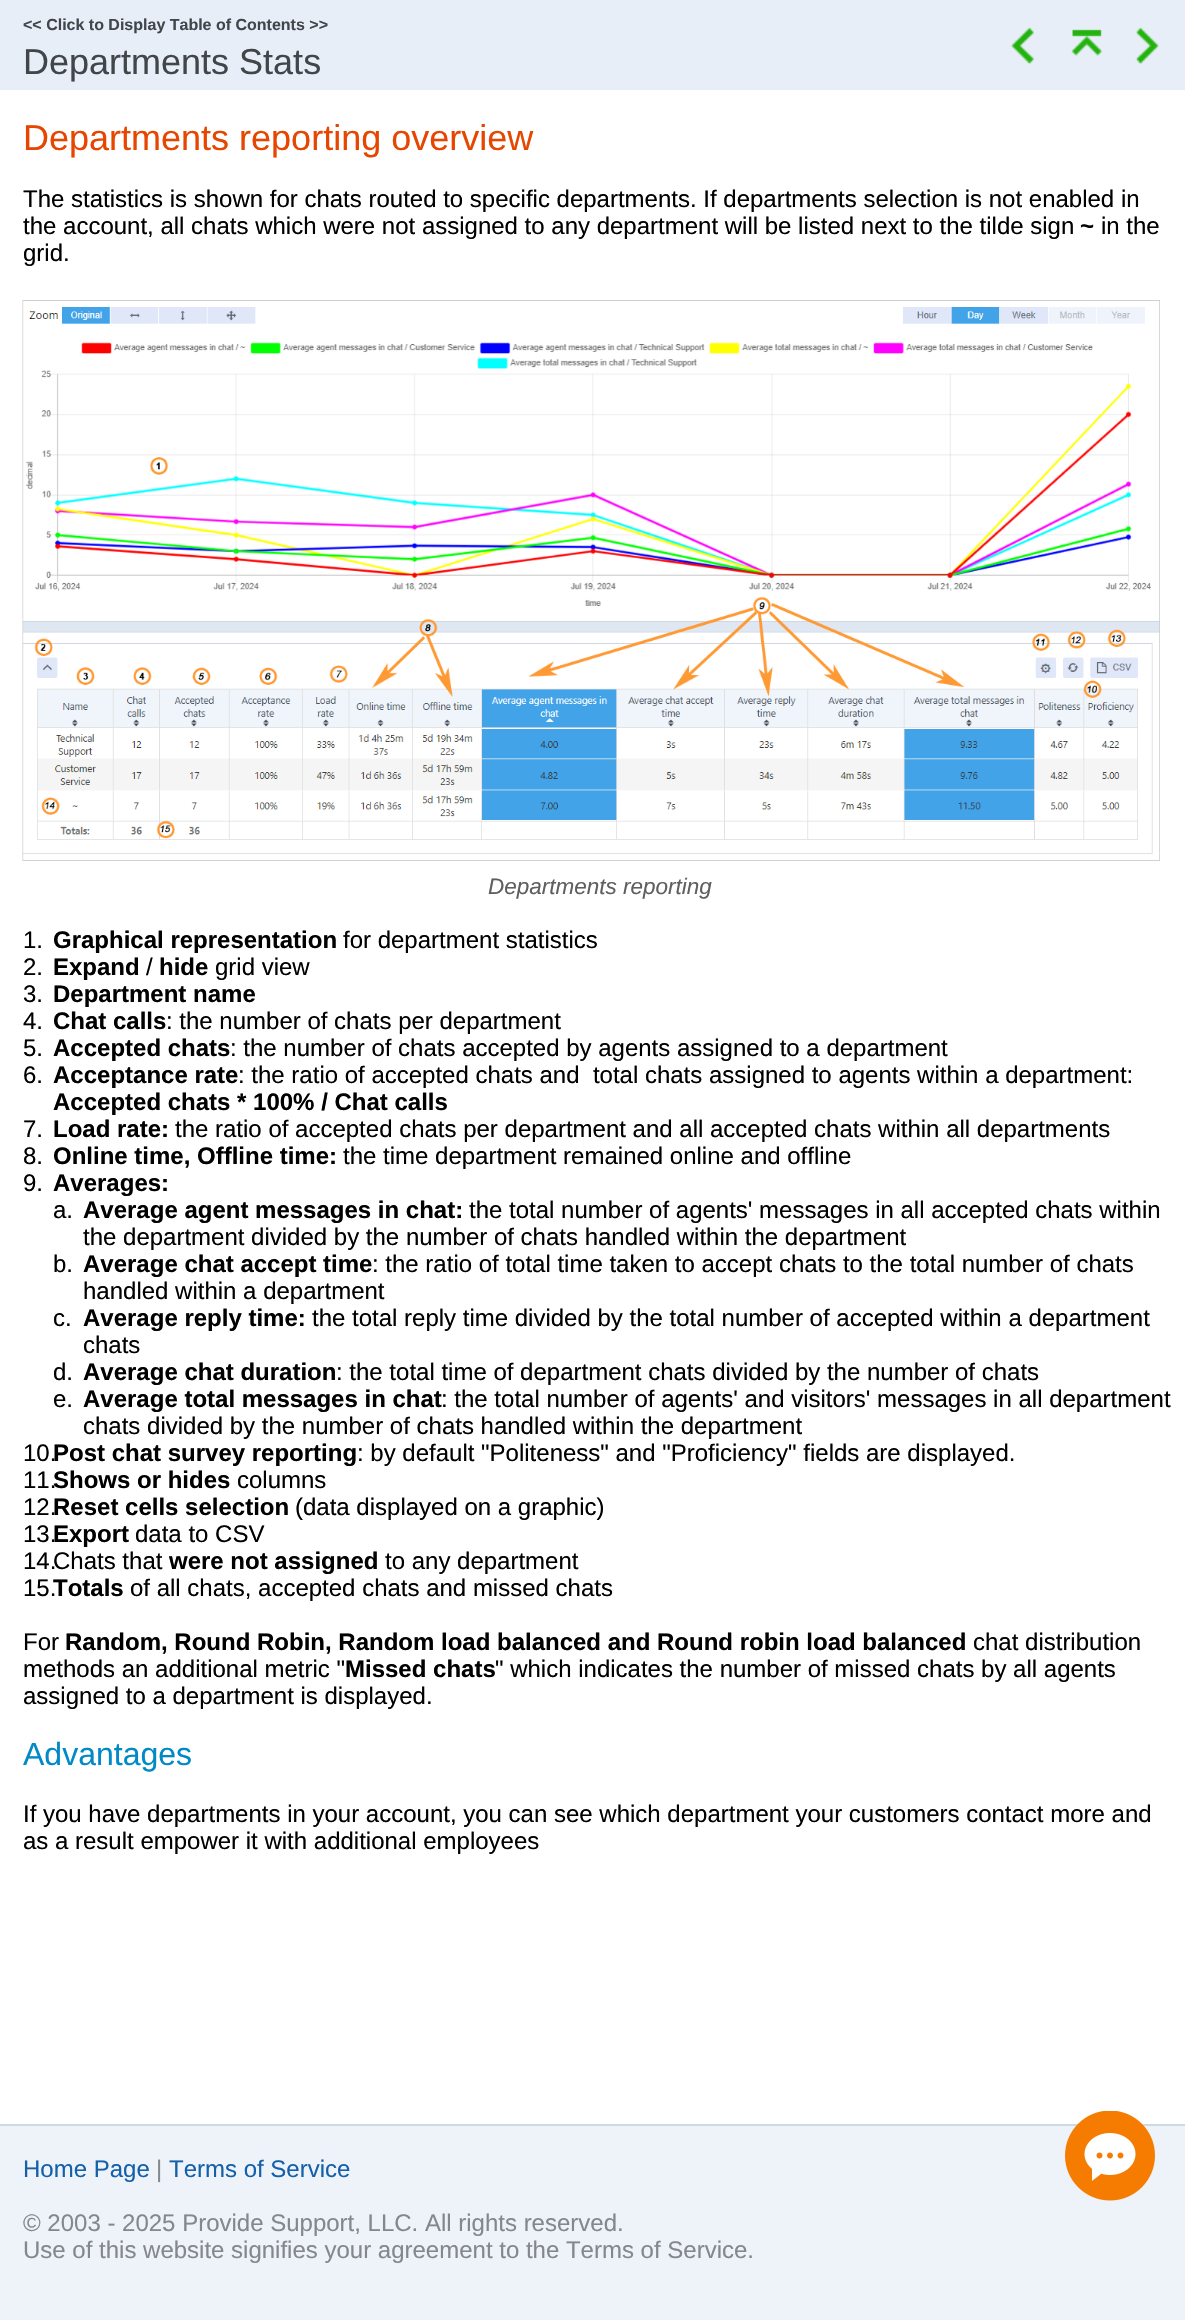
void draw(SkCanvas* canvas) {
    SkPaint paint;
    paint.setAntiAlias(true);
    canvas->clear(0xFFFFFFFF);
    paint.setColor(0xFFE8EEF8);
    canvas->drawRect(SkRect::MakeXYWH(0, 0, 1185, 90), paint);
    SkFont font1(fontMgr->matchFamilyStyle("Liberation Sans", SkFontStyle::Bold()), 16);
    font1.setSubpixel(true);
    paint.setColor(0xFF42464A);
    canvas->drawString("<< Click to Display Table of Contents >>", 23, 30, font1, paint);
    SkFont font2(fontMgr->matchFamilyStyle("Liberation Sans", SkFontStyle::Normal()), 36);
    font2.setSubpixel(true);
    canvas->drawString("Departments Stats", 23, 74, font2, paint);
    canvas->drawImageRect(SkImages::DeferredFromEncodedData(SkData::MakeFromFileName("img1.png")), SkRect::MakeXYWH(1011, 27, 23, 38), SkSamplingOptions());
    canvas->drawImageRect(SkImages::DeferredFromEncodedData(SkData::MakeFromFileName("img2.png")), SkRect::MakeXYWH(1071, 29, 32, 27), SkSamplingOptions());
    canvas->drawImageRect(SkImages::DeferredFromEncodedData(SkData::MakeFromFileName("img3.png")), SkRect::MakeXYWH(1135, 27, 24, 38), SkSamplingOptions());
    paint.setColor(0xFFE64600);
    canvas->drawString("Departments reporting overview", 23, 150, font2, paint);
    SkFont font3(fontMgr->matchFamilyStyle("Liberation Sans", SkFontStyle::Normal()), 24);
    font3.setSubpixel(true);
    paint.setColor(0xFF000000);
    canvas->drawString("The statistics is shown for chats routed to specific departments. If departments selection is not enabled in", 23, 207, font3, paint);
    canvas->drawString("the account, all chats which were not assigned to any department will be listed next to the tilde sign", 23, 234, font3, paint);
    SkFont font4(fontMgr->matchFamilyStyle("Liberation Sans", SkFontStyle::Bold()), 24);
    font4.setSubpixel(true);
    canvas->drawString("~", 1080, 234, font4, paint);
    canvas->drawString("in the", 1101, 234, font3, paint);
    canvas->drawString("grid.", 23, 261, font3, paint);
    canvas->drawImageRect(SkImages::DeferredFromEncodedData(SkData::MakeFromFileName("img4.png")), SkRect::MakeXYWH(22, 300, 1138, 561), SkSamplingOptions());
    SkFont font5(fontMgr->matchFamilyStyle("Liberation Sans", SkFontStyle::Italic()), 22.5f);
    font5.setSubpixel(true);
    paint.setColor(0xFF5F5F5F);
    canvas->drawString("Departments reporting", 488, 894, font5, paint);
    paint.setColor(0xFF000000);
    canvas->drawString("1.", 23, 948, font3, paint);
    canvas->drawString("Graphical representation", 53, 948, font4, paint);
    canvas->drawString("for department statistics", 343, 948, font3, paint);
    canvas->drawString("2.", 23, 975, font3, paint);
    canvas->drawString("Expand", 53, 975, font4, paint);
    canvas->drawString("/", 146, 975, font3, paint);
    canvas->drawString("hide", 159, 975, font4, paint);
    canvas->drawString("grid view", 215, 975, font3, paint);
    canvas->drawString("3.", 23, 1002, font3, paint);
    canvas->drawString("Department name", 53, 1002, font4, paint);
    canvas->drawString("4.", 23, 1029, font3, paint);
    canvas->drawString("Chat calls", 53, 1029, font4, paint);
    canvas->drawString(": the number of chats per department", 166, 1029, font3, paint);
    canvas->drawString("5.", 23, 1056, font3, paint);
    canvas->drawString("Accepted chats", 53, 1056, font4, paint);
    canvas->drawString(": the number of chats accepted by agents assigned to a department", 230, 1056, font3, paint);
    canvas->drawString("6.", 23, 1083, font3, paint);
    canvas->drawString("Acceptance rate", 53, 1083, font4, paint);
    canvas->drawString(": the ratio of accepted chats and  total chats assigned to agents within a department:", 238, 1083, font3, paint);
    canvas->drawString("Accepted chats * 100% / Chat calls", 53, 1110, font4, paint);
    canvas->drawString("7.", 23, 1137, font3, paint);
    canvas->drawString("Load rate:", 53, 1137, font4, paint);
    canvas->drawString("the ratio of accepted chats per department and all accepted chats within all departments", 175, 1137, font3, paint);
    canvas->drawString("8.", 23, 1164, font3, paint);
    canvas->drawString("Online time, Offline time:", 53, 1164, font4, paint);
    canvas->drawString("the time department remained online and offline", 343, 1164, font3, paint);
    canvas->drawString("9.", 23, 1191, font3, paint);
    canvas->drawString("Averages:", 53, 1191, font4, paint);
    canvas->drawString("a.", 53, 1218, font3, paint);
    canvas->drawString("Average agent messages in chat:", 83, 1218, font4, paint);
    canvas->drawString("the total number of agents' messages in all accepted chats within", 469, 1218, font3, paint);
    canvas->drawString("the department divided by the number of chats handled within the department", 83, 1245, font3, paint);
    canvas->drawString("b.", 53, 1272, font3, paint);
    canvas->drawString("Average chat accept time", 83, 1272, font4, paint);
    canvas->drawString(": the ratio of total time taken to accept chats to the total number of chats", 372, 1272, font3, paint);
    canvas->drawString("handled within a department", 83, 1299, font3, paint);
    canvas->drawString("c.", 53, 1326, font3, paint);
    canvas->drawString("Average reply time:", 83, 1326, font4, paint);
    canvas->drawString("the total reply time divided by the total number of accepted within a department", 312, 1326, font3, paint);
    canvas->drawString("chats", 83, 1353, font3, paint);
    canvas->drawString("d.", 53, 1380, font3, paint);
    canvas->drawString("Average chat duration", 83, 1380, font4, paint);
    canvas->drawString(": the total time of department chats divided by the number of chats", 336, 1380, font3, paint);
    canvas->drawString("e.", 53, 1407, font3, paint);
    canvas->drawString("Average total messages in chat", 83, 1407, font4, paint);
    canvas->drawString(": the total number of agents' and visitors' messages in all department", 441, 1407, font3, paint);
    canvas->drawString("chats divided by the number of chats handled within the department", 83, 1434, font3, paint);
    canvas->drawString("10.", 23, 1461, font3, paint);
    canvas->drawString("Post chat survey reporting", 53, 1461, font4, paint);
    canvas->drawString(": by default \"Politeness\" and \"Proficiency\" fields are displayed.", 357, 1461, font3, paint);
    canvas->drawString("11.", 23, 1488, font3, paint);
    canvas->drawString("Shows or hides", 53, 1488, font4, paint);
    canvas->drawString("columns", 237, 1488, font3, paint);
    canvas->drawString("12.", 23, 1515, font3, paint);
    canvas->drawString("Reset cells selection", 53, 1515, font4, paint);
    canvas->drawString("(data displayed on a graphic)", 295, 1515, font3, paint);
    canvas->drawString("13.", 23, 1542, font3, paint);
    canvas->drawString("Export", 53, 1542, font4, paint);
    canvas->drawString("data to CSV", 135, 1542, font3, paint);
    canvas->drawString("14.", 23, 1569, font3, paint);
    canvas->drawString("Chats that", 53, 1569, font3, paint);
    canvas->drawString("were not assigned", 169, 1569, font4, paint);
    canvas->drawString("to any department", 385, 1569, font3, paint);
    canvas->drawString("15.", 23, 1596, font3, paint);
    canvas->drawString("Totals", 53, 1596, font4, paint);
    canvas->drawString("of all chats, accepted chats and missed chats", 130, 1596, font3, paint);
    canvas->drawString("For", 23, 1650, font3, paint);
    canvas->drawString("Random, Round Robin, Random load balanced and Round robin load balanced", 65, 1650, font4, paint);
    canvas->drawString("chat distribution", 973, 1650, font3, paint);
    canvas->drawString("methods an additional metric \"", 23, 1677, font3, paint);
    canvas->drawString("Missed chats", 345, 1677, font4, paint);
    canvas->drawString("\" which indicates the number of missed chats by all agents", 495, 1677, font3, paint);
    canvas->drawString("assigned to a department is displayed.", 23, 1704, font3, paint);
    SkFont font6(fontMgr->matchFamilyStyle("Liberation Sans", SkFontStyle::Normal()), 32);
    font6.setSubpixel(true);
    paint.setColor(0xFF008AC6);
    canvas->drawString("Advantages", 23, 1765, font6, paint);
    paint.setColor(0xFF000000);
    canvas->drawString("If you have departments in your account, you can see which department your customers contact more and", 23, 1822, font3, paint);
    canvas->drawString("as a result empower it with additional employees", 23, 1849, font3, paint);
    paint.setColor(0xFFEEF2F9);
    canvas->drawRect(SkRect::MakeXYWH(0, 2126, 1185, 194), paint);
    paint.setColor(0xFFCFD9E2);
    canvas->drawRect(SkRect::MakeXYWH(0, 2124, 1185, 2), paint);
    paint.setColor(0xFF1461AA);
    canvas->drawString("Home Page", 23, 2177, font3, paint);
    paint.setColor(0xFF84888B);
    canvas->drawString("|", 156, 2177, font3, paint);
    paint.setColor(0xFF1461AA);
    canvas->drawString("Terms of Service", 169, 2177, font3, paint);
    paint.setColor(0xFF84888B);
    canvas->drawString("© 2003 - 2025 Provide Support, LLC. All rights reserved.", 23, 2231, font3, paint);
    canvas->drawString("Use of this website signifies your agreement to the Terms of Service.", 23, 2258, font3, paint);
    canvas->drawImageRect(SkImages::DeferredFromEncodedData(SkData::MakeFromFileName("img5.png")), SkRect::MakeXYWH(1065, 2111, 90, 90), SkSamplingOptions());
}
